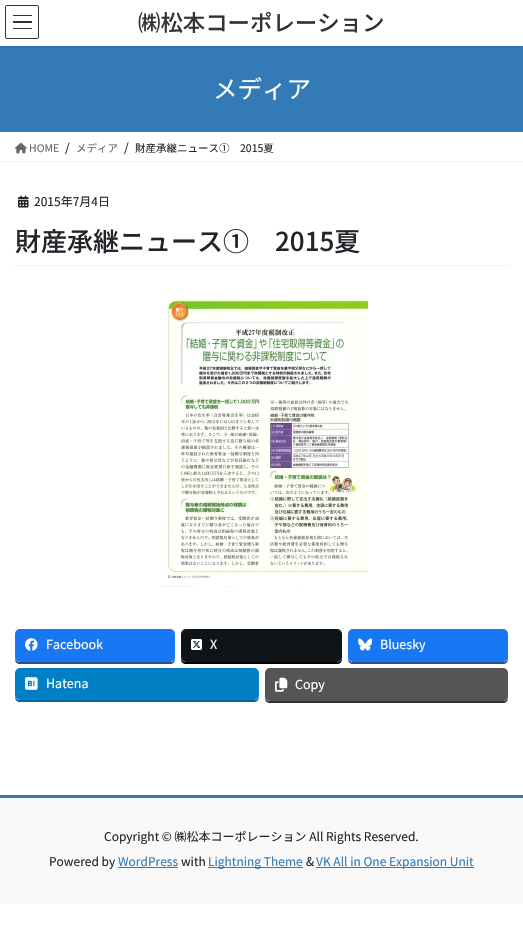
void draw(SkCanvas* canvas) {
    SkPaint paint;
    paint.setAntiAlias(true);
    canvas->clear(0xFFFFFFFF);
    paint.setColor(0xFF337AB7);
    canvas->drawRect(SkRect::MakeXYWH(0, 46, 523, 86), paint);
    canvas->save();
    canvas->clipRect(SkRect::MakeXYWH(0, 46, 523, 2));
    paint.setColor(0x1A000000);
    paint.setMaskFilter(SkMaskFilter::MakeBlur(kNormal_SkBlurStyle, 1.5f));
    canvas->drawRect(SkRect::MakeXYWH(0, 1, 523, 46), paint);
    paint.setMaskFilter(nullptr);
    canvas->restore();
    paint.setColor(0xFF333333);
    canvas->drawRect(SkRect::MakeXYWH(13, 15, 19, 1), paint);
    canvas->drawRect(SkRect::MakeXYWH(13, 21, 19, 2), paint);
    canvas->drawRect(SkRect::MakeXYWH(13, 28, 19, 1), paint);
    paint.setStyle(SkPaint::kStroke_Style);
    paint.setStrokeWidth(1);
    canvas->drawRoundRect(SkRect::MakeXYWH(5.5f, 5.5f, 33, 33), 1.5f, 1.5f, paint);
    SkFont font1(fontMgr->matchFamilyStyle("Noto Sans JP", SkFontStyle(500, SkFontStyle::kNormal_Width, SkFontStyle::kUpright_Slant)), 22.4f);
    font1.setSubpixel(true);
    paint.setStyle(SkPaint::kFill_Style);
    canvas->drawString("㈱松本コーポレーション", 138, 31, font1, paint);
    SkFont font2(fontMgr->matchFamilyStyle("Noto Sans JP", SkFontStyle::Normal()), 24.5f);
    font2.setSubpixel(true);
    paint.setColor(0xFFFFFFFF);
    canvas->drawString("メディア", 213, 98, font2, paint);
    paint.setColor(0xFFF2F2F2);
    canvas->drawRect(SkRect::MakeXYWH(0, 161, 523, 1), paint);
    canvas->drawImageRect(SkImages::DeferredFromEncodedData(SkData::MakeFromFileName("img1.png")), SkRect::MakeXYWH(15, 142, 12, 12), SkSamplingOptions());
    SkFont font3(fontMgr->matchFamilyStyle("Noto Sans JP", SkFontStyle::Normal()), 10.5f);
    font3.setSubpixel(true);
    paint.setColor(0xFF666666);
    canvas->drawString("HOME", 29, 152, font3, paint);
    SkFont font4(fontMgr->matchFamilyStyle("Noto Sans JP", SkFontStyle::Normal()), 12);
    font4.setSubpixel(true);
    paint.setColor(0xFF212529);
    canvas->drawString("/", 65, 152, font4, paint);
    paint.setColor(0xFF666666);
    canvas->drawString("メディア", 76, 152, font3, paint);
    paint.setColor(0xFF212529);
    canvas->drawString("/", 124, 152, font4, paint);
    canvas->drawString("財産承継ニュース①　2015夏", 135, 152, font3, paint);
    paint.setColor(0xFFF2F2F2);
    canvas->drawRect(SkRect::MakeXYWH(15, 265, 493, 1), paint);
    canvas->drawImageRect(SkImages::DeferredFromEncodedData(SkData::MakeFromFileName("img2.png")), SkRect::MakeXYWH(18, 195, 11, 13), SkSamplingOptions());
    paint.setColor(0xFF212529);
    canvas->drawString("2015年7月4日", 34, 206, font4, paint);
    SkFont font5(fontMgr->matchFamilyStyle("Noto Sans JP", SkFontStyle(500, SkFontStyle::kNormal_Width, SkFontStyle::kUpright_Slant)), 26);
    font5.setSubpixel(true);
    canvas->drawString("財産承継ニュース①　2015夏", 15, 251, font5, paint);
    canvas->drawImageRect(SkImages::DeferredFromEncodedData(SkData::MakeFromFileName("img3.png")), SkRect::MakeXYWH(160, 299, 208, 288), SkSamplingOptions());
    paint.setColor(0xFF344E84);
    canvas->drawPath(SkPathBuilder().moveTo(15, 657).lineTo(15, 659).cubicTo(15, 662, 17, 664, 20, 664).lineTo(170, 664).cubicTo(173, 664, 175, 662, 175, 659).lineTo(175, 657).cubicTo(175, 660, 173, 662, 170, 662).lineTo(20, 662).cubicTo(17, 662, 15, 660, 15, 657).close().detach(), paint);
    paint.setColor(0xFF1877F2);
    canvas->drawRoundRect(SkRect::MakeXYWH(15, 629, 160, 33), 5, 5, paint);
    canvas->drawImageRect(SkImages::DeferredFromEncodedData(SkData::MakeFromFileName("img4.png")), SkRect::MakeXYWH(25, 638, 13, 13), SkSamplingOptions());
    SkFont font6(fontMgr->matchFamilyStyle("Noto Sans JP", SkFontStyle::Normal()), 12.5f);
    font6.setSubpixel(true);
    paint.setColor(0xFFFFFFFF);
    canvas->drawString("Facebook", 46, 649, font6, paint);
    paint.setColor(0xFF000000);
    canvas->drawPath(SkPathBuilder().moveTo(181, 657).lineTo(181, 659).cubicTo(181, 662, 183, 664, 186, 664).lineTo(337, 664).cubicTo(340, 664, 342, 662, 342, 659).lineTo(342, 657).cubicTo(342, 660, 340, 662, 337, 662).lineTo(186, 662).cubicTo(183, 662, 181, 660, 181, 657).close().detach(), paint);
    paint.setColor(0xFF0F1419);
    canvas->drawRoundRect(SkRect::MakeXYWH(181, 629, 161, 33), 5, 5, paint);
    canvas->drawImageRect(SkImages::DeferredFromEncodedData(SkData::MakeFromFileName("img5.png")), SkRect::MakeXYWH(191, 639, 12, 11), SkSamplingOptions());
    paint.setColor(0xFFFFFFFF);
    canvas->drawString("X", 210, 649, font6, paint);
    paint.setColor(0xFF344E84);
    canvas->drawPath(SkPathBuilder().moveTo(348, 657).lineTo(348, 659).cubicTo(348, 662, 350, 664, 353, 664).lineTo(503, 664).cubicTo(506, 664, 508, 662, 508, 659).lineTo(508, 657).cubicTo(508, 660, 506, 662, 503, 662).lineTo(353, 662).cubicTo(350, 662, 348, 660, 348, 657).close().detach(), paint);
    paint.setColor(0xFF1877F2);
    canvas->drawRoundRect(SkRect::MakeXYWH(348, 629, 160, 33), 5, 5, paint);
    canvas->drawImageRect(SkImages::DeferredFromEncodedData(SkData::MakeFromFileName("img6.png")), SkRect::MakeXYWH(358, 638, 14, 13), SkSamplingOptions());
    paint.setColor(0xFFFFFFFF);
    canvas->drawString("Bluesky", 380, 649, font6, paint);
    paint.setColor(0xFF00679F);
    canvas->drawPath(SkPathBuilder().moveTo(15, 695).cubicTo(15, 698, 15, 701, 19, 702).lineTo(255, 702).cubicTo(259, 701, 259, 698, 259, 695).cubicTo(259, 698, 257, 700, 254, 700).lineTo(20, 700).cubicTo(17, 700, 15, 698, 15, 695).close().detach(), paint);
    paint.setColor(0xFF007FC5);
    canvas->drawRoundRect(SkRect::MakeXYWH(15, 668, 244, 32), 5, 5, paint);
    canvas->drawImageRect(SkImages::DeferredFromEncodedData(SkData::MakeFromFileName("img7.png")), SkRect::MakeXYWH(25, 677, 13, 13), SkSamplingOptions());
    paint.setColor(0xFFFFFFFF);
    canvas->drawString("Hatena", 46, 688, font6, paint);
    paint.setColor(0xFF333333);
    canvas->drawPath(SkPathBuilder().moveTo(265, 696).cubicTo(265, 699, 265, 702, 269, 703).lineTo(504, 703).cubicTo(508, 702, 508, 699, 508, 696).cubicTo(508, 699, 506, 701, 503, 701).lineTo(270, 701).cubicTo(267, 701, 265, 699, 265, 696).close().detach(), paint);
    paint.setColor(0xFF555555);
    canvas->drawRoundRect(SkRect::MakeXYWH(265, 668, 243, 33), 5, 5, paint);
    canvas->drawImageRect(SkImages::DeferredFromEncodedData(SkData::MakeFromFileName("img8.png")), SkRect::MakeXYWH(275, 677, 13, 15), SkSamplingOptions());
    paint.setColor(0xFFFFFFFF);
    canvas->drawString("Copy", 295, 689, font6, paint);
    paint.setColor(0xFFF9F9F9);
    canvas->drawRect(SkRect::MakeXYWH(0, 798, 523, 106), paint);
    paint.setColor(0xFF337AB7);
    canvas->drawRect(SkRect::MakeXYWH(0, 795, 523, 3), paint);
    paint.setColor(0xFF212529);
    canvas->drawString("Copyright © ㈱松本コーポレーション All Rights Reserved.", 104, 841, font4, paint);
    canvas->drawString("Powered by", 49, 866, font4, paint);
    paint.setColor(0xFF337AB7);
    canvas->drawString("WordPress", 118, 866, font4, paint);
    canvas->drawRect(SkRect::MakeXYWH(118, 867, 60, 1), paint);
    paint.setColor(0xFF212529);
    canvas->drawString("with", 181, 866, font4, paint);
    paint.setColor(0xFF337AB7);
    canvas->drawRect(SkRect::MakeXYWH(208, 867, 95, 1), paint);
    canvas->drawString("Lightning Theme", 208, 866, font4, paint);
    paint.setColor(0xFF212529);
    canvas->drawString("&", 306, 866, font4, paint);
    paint.setColor(0xFF337AB7);
    canvas->drawRect(SkRect::MakeXYWH(316, 867, 158, 1), paint);
    canvas->drawString("VK All in One Expansion Unit", 316, 866, font4, paint);
}
